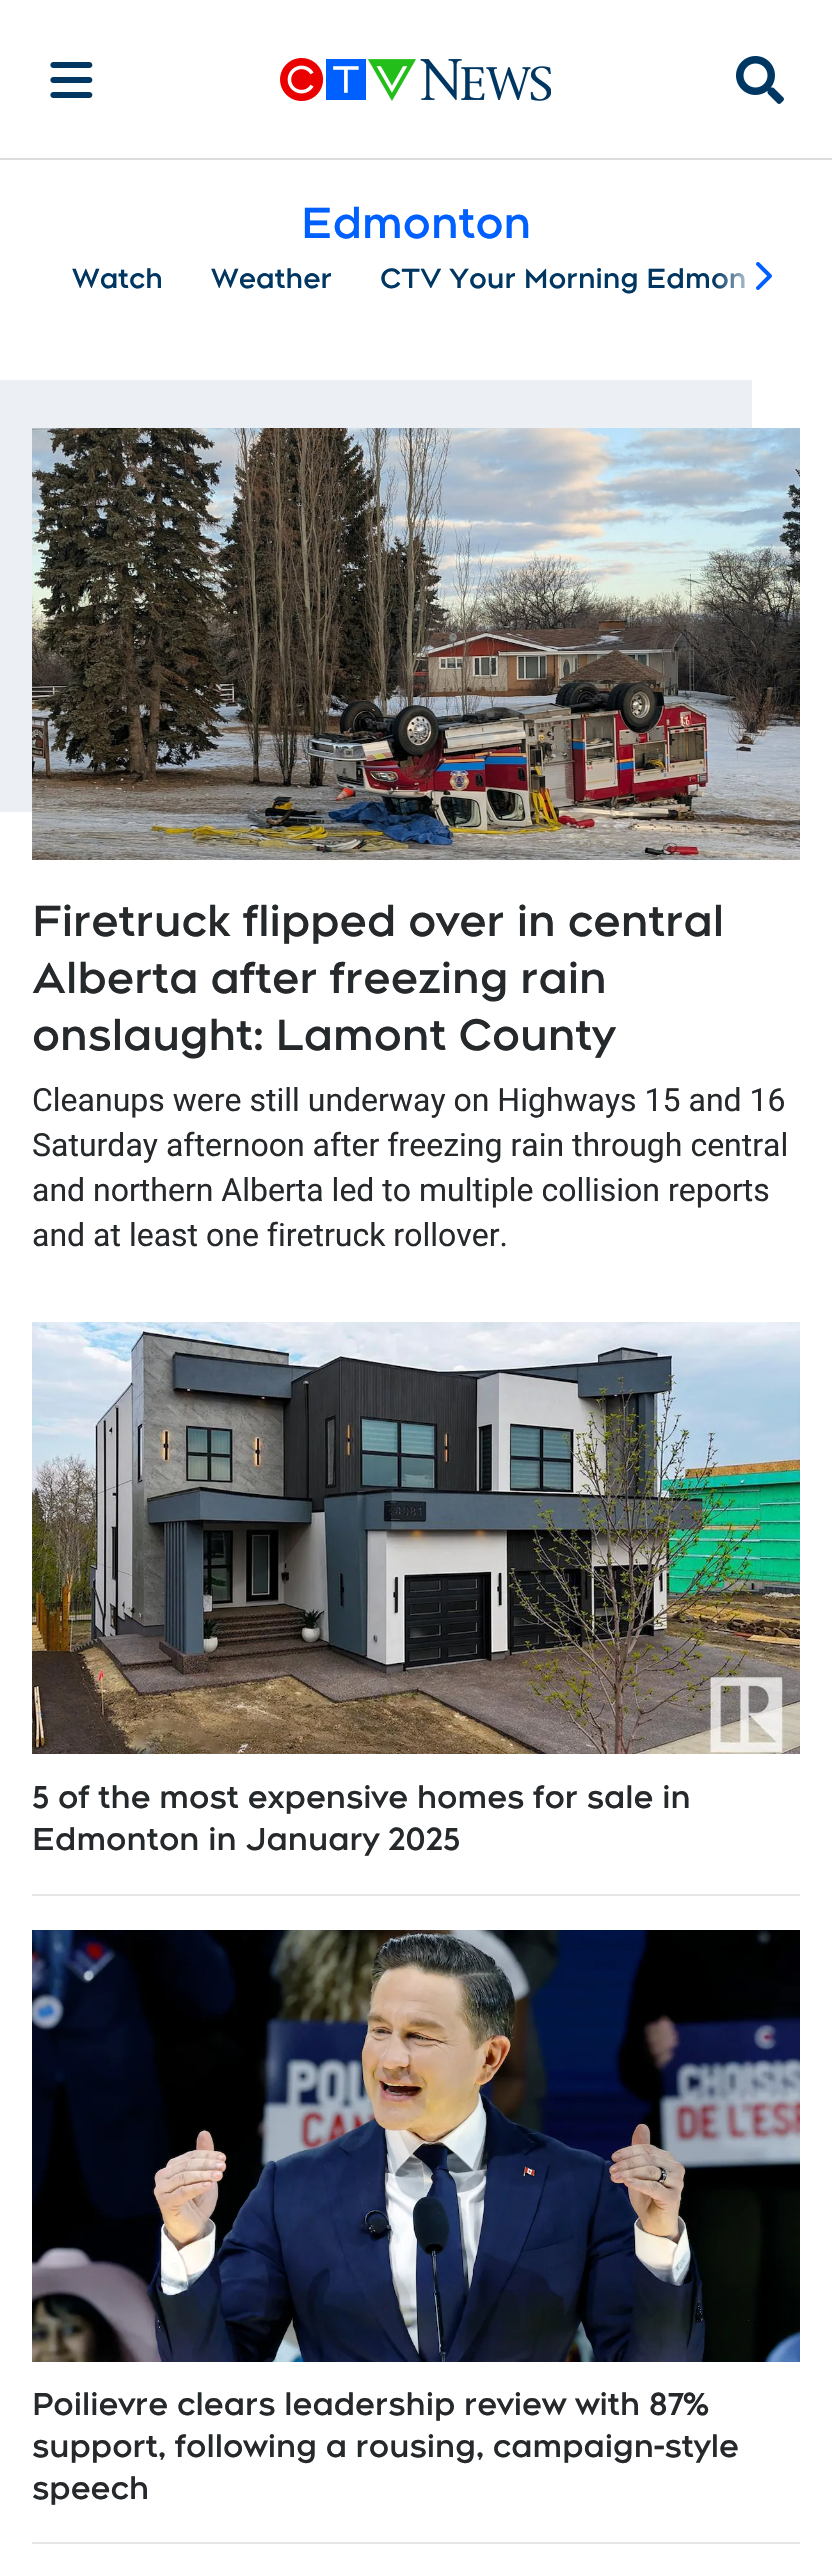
void draw(SkCanvas* canvas) {
    SkPaint paint;
    paint.setAntiAlias(true);
    canvas->clear(0xFFFFFFFF);
    paint.setColor(0xFFDDDDDD);
    canvas->drawRect(SkRect::MakeXYWH(0, 158, 832, 2), paint);
    canvas->drawImageRect(SkImages::DeferredFromEncodedData(SkData::MakeFromFileName("img1.png")), SkRect::MakeXYWH(50, 62, 43, 36), SkSamplingOptions());
    canvas->drawImageRect(SkImages::DeferredFromEncodedData(SkData::MakeFromFileName("img2.png")), SkRect::MakeXYWH(280, 58, 271, 43), SkSamplingOptions());
    canvas->drawImageRect(SkImages::DeferredFromEncodedData(SkData::MakeFromFileName("img3.png")), SkRect::MakeXYWH(736, 56, 48, 48), SkSamplingOptions());
    SkFont font1(fontMgr->matchFamilyStyle("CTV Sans", SkFontStyle::Bold()), 44);
    font1.setSubpixel(true);
    paint.setColor(0xFF005FFF);
    canvas->drawString("Edmonton", 301, 238, font1, paint);
    SkFont font2(fontMgr->matchFamilyStyle("CTV Sans", SkFontStyle::Bold()), 28);
    font2.setSubpixel(true);
    paint.setColor(0xFF003662);
    canvas->drawString("Watch", 72, 288, font2, paint);
    canvas->drawString("Weather", 211, 288, font2, paint);
    canvas->drawString("CTV Your Morning Edmon", 380, 288, font2, paint);
    canvas->save();
    canvas->clipRect(SkRect::MakeXYWH(24, 250, 784, 50));
    {
        const SkColor colors[] = {0xFFFFFFFF, 0x00FFFFFF};
        const float stops[] = {0.5f, 1};
        const SkPoint ends[] = {{810, 275}, {714, 275}};
        paint.setShader(SkGradientShader::MakeLinear(ends, colors, stops, 2, SkTileMode::kClamp));
        paint.setAlpha(255);
    }
    canvas->drawRoundRect(SkRect::MakeXYWH(714, 250, 96, 50), 8, 8, paint);
    canvas->restore();
    canvas->drawImageRect(SkImages::DeferredFromEncodedData(SkData::MakeFromFileName("img4.png")), SkRect::MakeXYWH(756, 262, 16, 28), SkSamplingOptions());
    paint.setShader(nullptr);
    paint.setColor(0xFFECEFF3);
    canvas->drawPath(SkPathBuilder().moveTo(-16, 380).lineTo(-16, 812).lineTo(32, 812).lineTo(32, 428).lineTo(752, 428).lineTo(752, 380).close().detach(), paint);
    canvas->drawImageRect(SkImages::DeferredFromEncodedData(SkData::MakeFromFileName("img5.png")), SkRect::MakeXYWH(32, 428, 768, 432), SkSamplingOptions());
    paint.setColor(0xFF26292B);
    canvas->drawString("Firetruck flipped over in central", 32, 936, font1, paint);
    canvas->drawString("Alberta after freezing rain", 32, 993, font1, paint);
    canvas->drawString("onslaught: Lamont County", 32, 1050, font1, paint);
    SkFont font3(fontMgr->matchFamilyStyle("Roboto", SkFontStyle::Normal()), 32);
    font3.setSubpixel(true);
    canvas->drawString("Cleanups were still underway on Highways 15 and 16", 32, 1111, font3, paint);
    canvas->drawString("Saturday afternoon after freezing rain through central", 32, 1156, font3, paint);
    canvas->drawString("and northern Alberta led to multiple collision reports", 32, 1201, font3, paint);
    canvas->drawString("and at least one firetruck rollover.", 32, 1246, font3, paint);
    canvas->drawImageRect(SkImages::DeferredFromEncodedData(SkData::MakeFromFileName("img6.png")), SkRect::MakeXYWH(32, 1322, 768, 432), SkSamplingOptions());
    SkFont font4(fontMgr->matchFamilyStyle("CTV Sans", SkFontStyle::Bold()), 32);
    font4.setSubpixel(true);
    canvas->drawString("5 of the most expensive homes for sale in", 32, 1808, font4, paint);
    canvas->drawString("Edmonton in January 2025", 32, 1850, font4, paint);
    paint.setColor(0xFFE6E6E6);
    canvas->drawRect(SkRect::MakeXYWH(32, 1894, 768, 2), paint);
    canvas->drawImageRect(SkImages::DeferredFromEncodedData(SkData::MakeFromFileName("img7.png")), SkRect::MakeXYWH(32, 1930, 768, 432), SkSamplingOptions());
    paint.setColor(0xFF26292B);
    canvas->drawString("Poilievre clears leadership review with 87%", 32, 2415, font4, paint);
    canvas->drawString("support, following a rousing, campaign-style", 32, 2457, font4, paint);
    canvas->drawString("speech", 32, 2499, font4, paint);
    paint.setColor(0xFFE6E6E6);
    canvas->drawRect(SkRect::MakeXYWH(32, 2542, 768, 2), paint);
}
